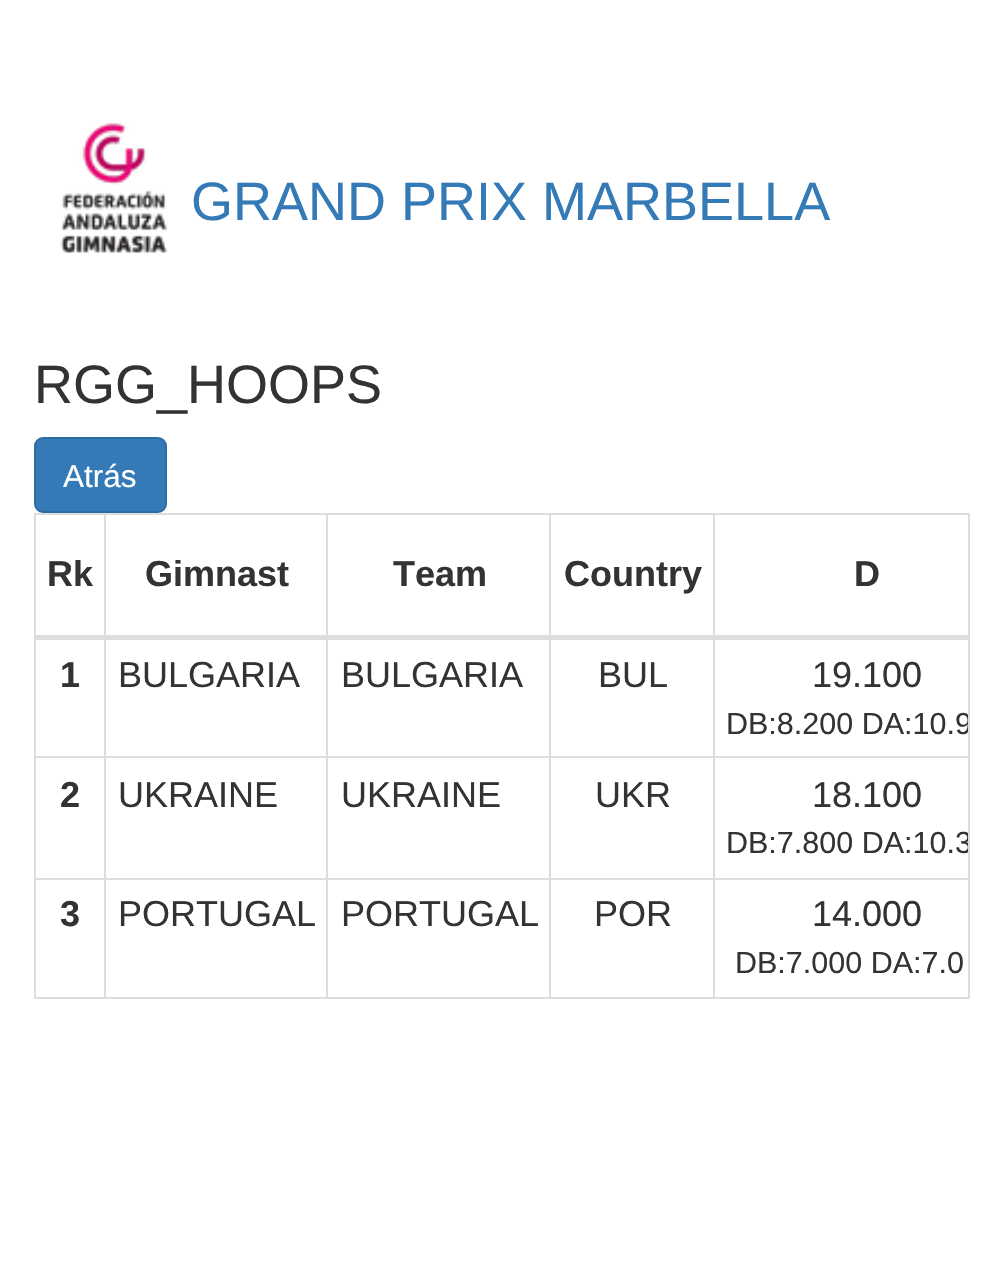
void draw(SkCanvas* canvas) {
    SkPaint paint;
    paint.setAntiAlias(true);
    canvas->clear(0xFFFFFFFF);
    canvas->drawImageRect(SkImages::DeferredFromEncodedData(SkData::MakeFromFileName("img1.png")), SkRect::MakeXYWH(60, 123, 108, 131), SkSamplingOptions());
    SkFont font1(fontMgr->matchFamilyStyle("Liberation Sans", SkFontStyle::Normal()), 54);
    font1.setSubpixel(true);
    paint.setColor(0xFF337AB7);
    canvas->drawString("GRAND PRIX MARBELLA", 191, 220, font1, paint);
    paint.setColor(0xFF333333);
    canvas->drawString("RGG_HOOPS", 34, 403, font1, paint);
    paint.setColor(0xFF337AB7);
    canvas->drawRoundRect(SkRect::MakeXYWH(35, 438, 131, 74), 8, 8, paint);
    paint.setStyle(SkPaint::kStroke_Style);
    paint.setStrokeWidth(2);
    paint.setColor(0xFF2E6DA4);
    canvas->drawRoundRect(SkRect::MakeXYWH(35, 438, 131, 74), 8, 8, paint);
    SkFont font2(fontMgr->matchFamilyStyle("Liberation Sans", SkFontStyle::Normal()), 31.5f);
    font2.setSubpixel(true);
    paint.setStyle(SkPaint::kFill_Style);
    paint.setColor(0xFFFFFFFF);
    canvas->drawString("Atrás", 63, 487, font2, paint);
    paint.setStyle(SkPaint::kStroke_Style);
    paint.setColor(0xFFDDDDDD);
    canvas->drawRect(SkRect::MakeXYWH(35, 514, 934, 484), paint);
    SkFont font3(fontMgr->matchFamilyStyle("Liberation Sans", SkFontStyle::Bold()), 36);
    font3.setSubpixel(true);
    paint.setStyle(SkPaint::kFill_Style);
    paint.setColor(0xFF333333);
    canvas->drawString("Rk", 47, 586, font3, paint);
    canvas->drawString("Gimnast", 145, 586, font3, paint);
    canvas->drawString("Team", 393, 586, font3, paint);
    canvas->drawString("Country", 564, 586, font3, paint);
    paint.setColor(0xFFDDDDDD);
    canvas->drawRect(SkRect::MakeXYWH(713, 756, 255, 2), paint);
    canvas->drawRect(SkRect::MakeXYWH(713, 878, 255, 2), paint);
    canvas->drawRect(SkRect::MakeXYWH(713, 878, 2, 119), paint);
    canvas->drawRect(SkRect::MakeXYWH(549, 878, 167, 2), paint);
    canvas->drawRect(SkRect::MakeXYWH(713, 756, 2, 124), paint);
    canvas->drawRect(SkRect::MakeXYWH(549, 756, 167, 2), paint);
    canvas->drawRect(SkRect::MakeXYWH(549, 878, 2, 119), paint);
    canvas->drawRect(SkRect::MakeXYWH(326, 878, 225, 2), paint);
    canvas->drawRect(SkRect::MakeXYWH(549, 756, 2, 124), paint);
    canvas->drawRect(SkRect::MakeXYWH(326, 756, 225, 2), paint);
    canvas->drawRect(SkRect::MakeXYWH(326, 878, 2, 119), paint);
    canvas->drawRect(SkRect::MakeXYWH(104, 878, 225, 2), paint);
    canvas->drawRect(SkRect::MakeXYWH(326, 756, 2, 124), paint);
    canvas->drawRect(SkRect::MakeXYWH(104, 756, 225, 2), paint);
    canvas->drawRect(SkRect::MakeXYWH(104, 878, 2, 119), paint);
    canvas->drawRect(SkRect::MakeXYWH(36, 878, 70, 2), paint);
    canvas->drawRect(SkRect::MakeXYWH(104, 756, 2, 124), paint);
    canvas->drawRect(SkRect::MakeXYWH(36, 756, 70, 2), paint);
    canvas->drawRect(SkRect::MakeXYWH(104, 515, 2, 243), paint);
    canvas->drawRect(SkRect::MakeXYWH(326, 515, 2, 243), paint);
    canvas->drawRect(SkRect::MakeXYWH(549, 515, 2, 243), paint);
    canvas->drawRect(SkRect::MakeXYWH(713, 515, 2, 243), paint);
    canvas->drawRect(SkRect::MakeXYWH(36, 635, 932, 5), paint);
    paint.setColor(0xFF333333);
    canvas->drawString("D", 854, 586, font3, paint);
    canvas->drawString("1", 60, 687, font3, paint);
    SkFont font4(fontMgr->matchFamilyStyle("Liberation Sans", SkFontStyle::Normal()), 36);
    font4.setSubpixel(true);
    canvas->drawString("BULGARIA", 118, 687, font4, paint);
    canvas->drawString("BULGARIA", 341, 687, font4, paint);
    canvas->drawString("BUL", 598, 687, font4, paint);
    canvas->drawString("19.100", 812, 687, font4, paint);
    canvas->save();
    canvas->clipRect(SkRect::MakeXYWH(36, 515, 932, 482));
    SkFont font5(fontMgr->matchFamilyStyle("Liberation Sans", SkFontStyle::Normal()), 30.5f);
    font5.setSubpixel(true);
    canvas->drawString("DB:8.200 DA:10.9", 726, 734, font5, paint);
    canvas->restore();
    canvas->drawString("2", 60, 807, font3, paint);
    canvas->drawString("UKRAINE", 118, 807, font4, paint);
    canvas->drawString("UKRAINE", 341, 807, font4, paint);
    canvas->drawString("UKR", 595, 807, font4, paint);
    canvas->drawString("18.100", 812, 807, font4, paint);
    canvas->save();
    canvas->clipRect(SkRect::MakeXYWH(36, 515, 932, 482));
    canvas->drawString("DB:7.800 DA:10.3", 726, 853, font5, paint);
    canvas->restore();
    canvas->drawString("3", 60, 926, font3, paint);
    canvas->drawString("PORTUGAL", 118, 926, font4, paint);
    canvas->drawString("PORTUGAL", 341, 926, font4, paint);
    canvas->drawString("POR", 594, 926, font4, paint);
    canvas->drawString("14.000", 812, 926, font4, paint);
    canvas->drawString("DB:7.000 DA:7.0", 735, 973, font5, paint);
}
